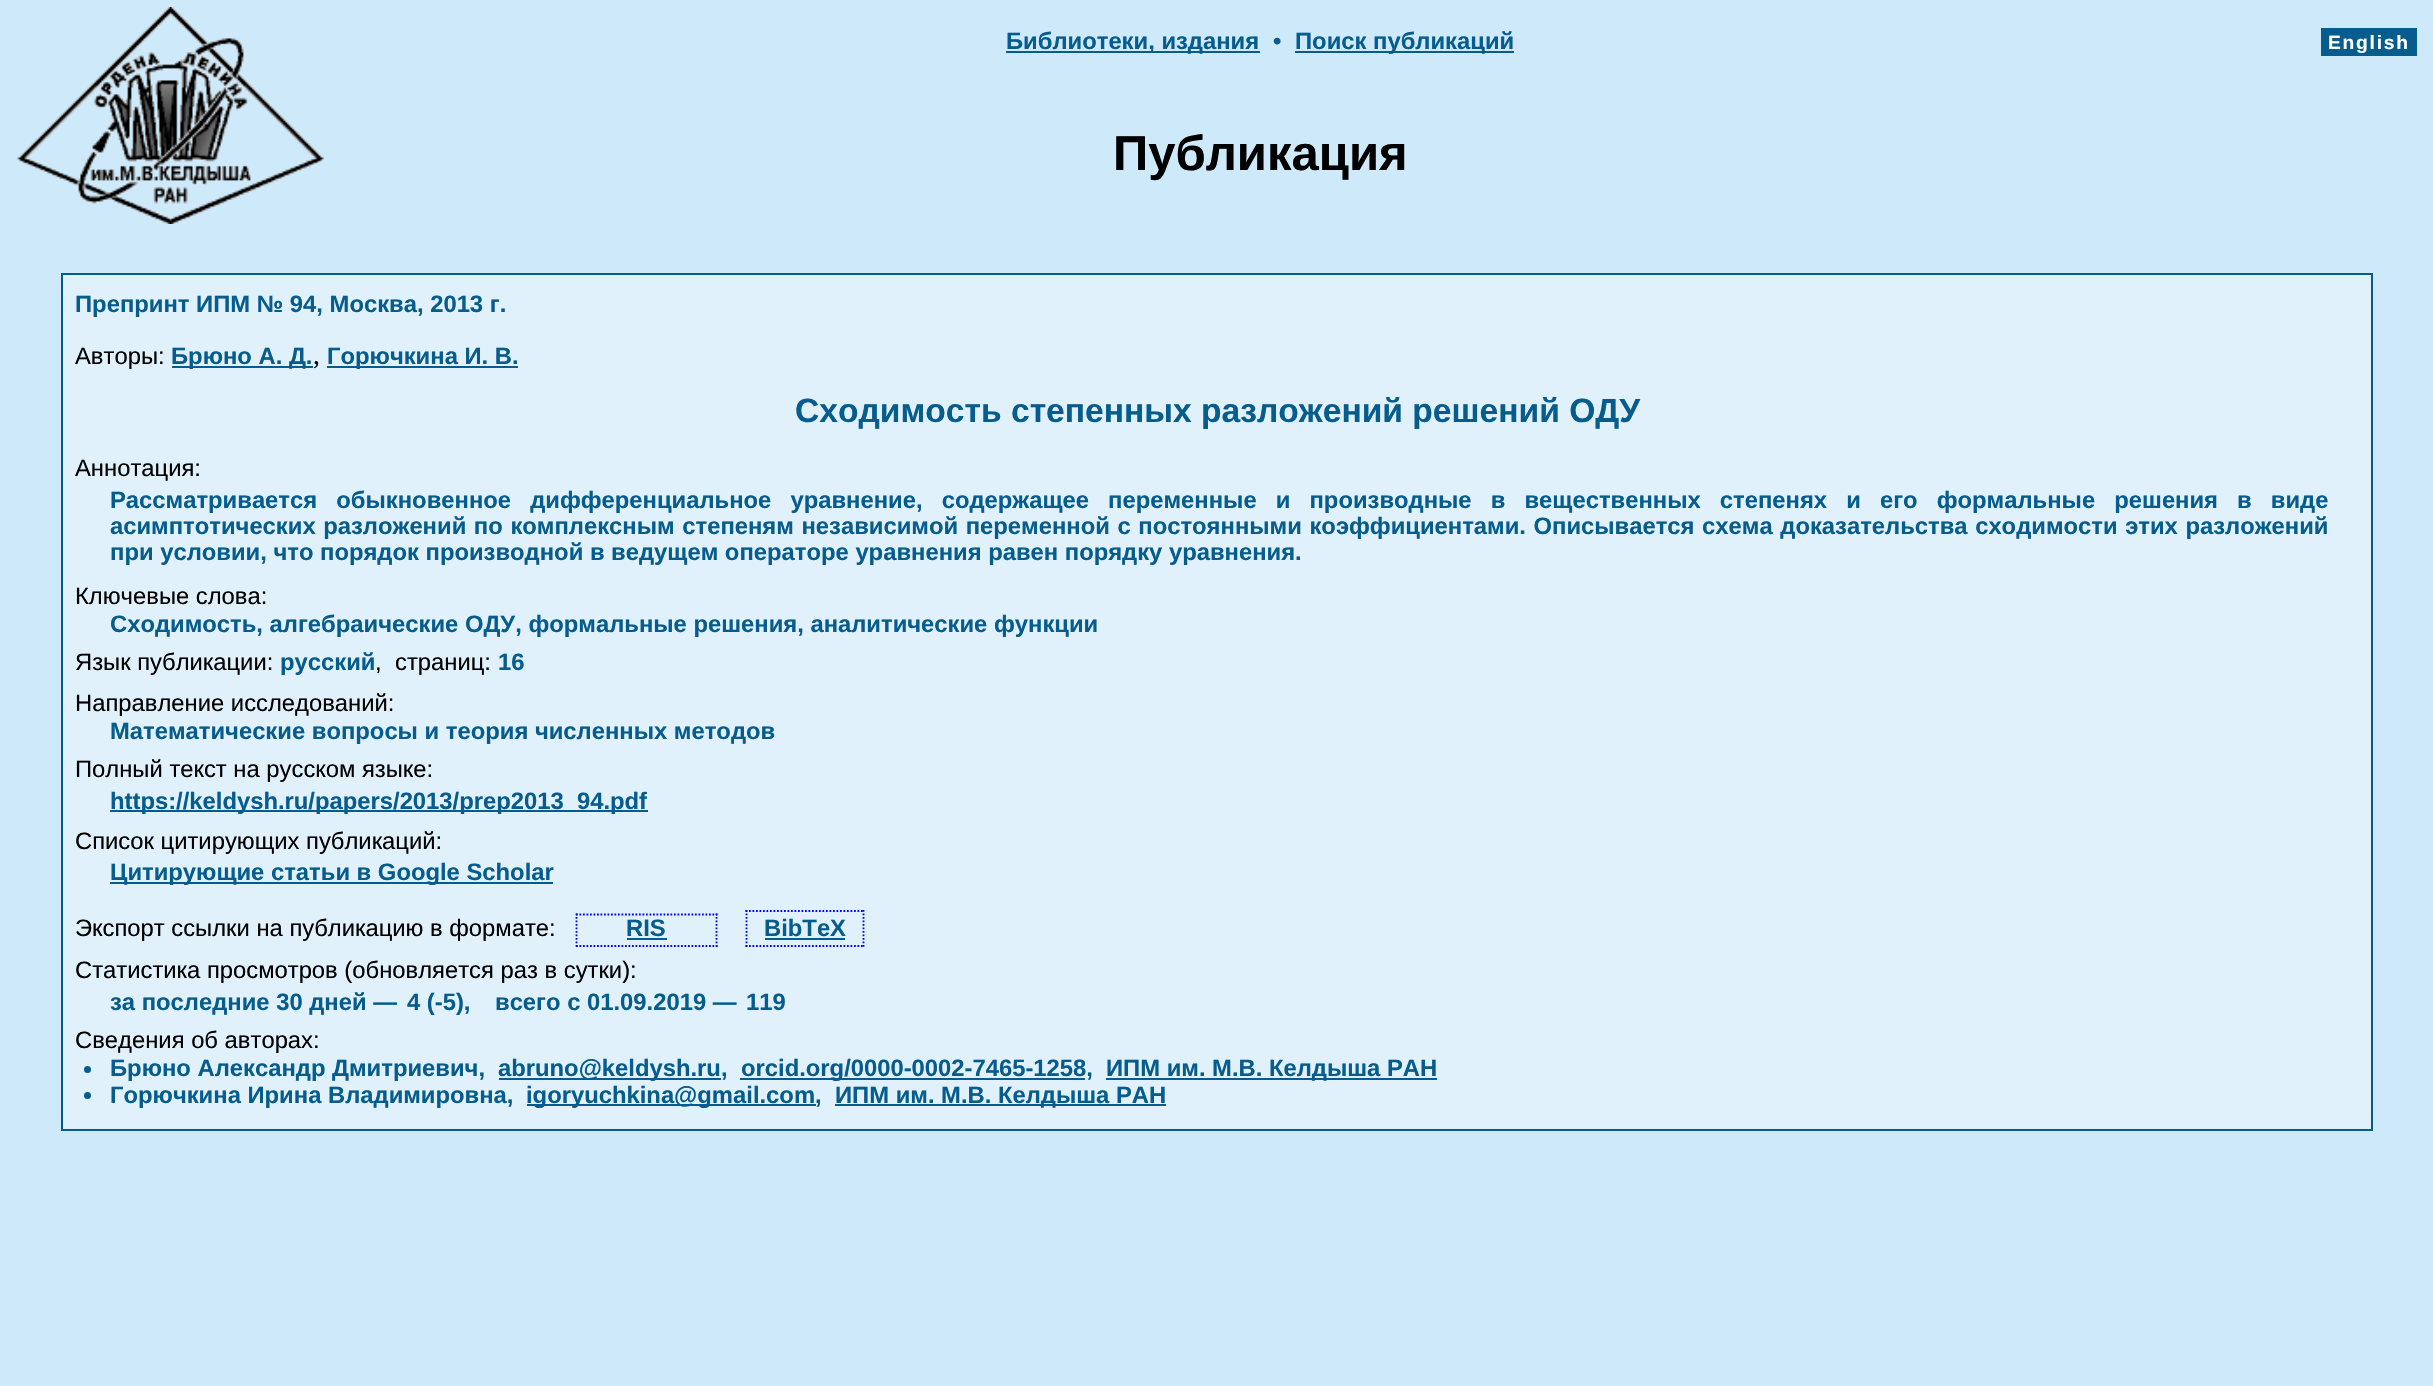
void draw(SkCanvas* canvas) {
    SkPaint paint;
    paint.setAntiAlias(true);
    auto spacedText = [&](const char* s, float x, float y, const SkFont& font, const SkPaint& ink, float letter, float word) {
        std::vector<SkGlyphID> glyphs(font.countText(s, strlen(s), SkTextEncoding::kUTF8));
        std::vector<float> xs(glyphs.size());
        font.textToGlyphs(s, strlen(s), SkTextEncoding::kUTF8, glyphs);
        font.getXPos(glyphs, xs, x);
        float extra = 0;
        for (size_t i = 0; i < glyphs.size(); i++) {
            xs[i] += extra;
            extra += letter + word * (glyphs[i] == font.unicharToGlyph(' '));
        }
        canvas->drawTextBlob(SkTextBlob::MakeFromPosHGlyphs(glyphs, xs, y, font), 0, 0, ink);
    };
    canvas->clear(0xFFCEEAFA);
    canvas->drawImageRect(SkImages::DeferredFromEncodedData(SkData::MakeFromFileName("img1.png")), SkRect::MakeXYWH(17, 7, 307, 217), SkSamplingOptions());
    paint.setColor(0xFF065C8D);
    canvas->drawRect(SkRect::MakeXYWH(1006, 51, 254, 2), paint);
    SkFont font1(fontMgr->matchFamilyStyle("Liberation Sans", SkFontStyle::Bold()), 23.8f);
    font1.setSubpixel(true);
    canvas->drawString("Библиотеки, издания", 1006, 49, font1, paint);
    canvas->drawString("•", 1273, 49, font1, paint);
    canvas->drawRect(SkRect::MakeXYWH(1295, 51, 219, 2), paint);
    canvas->drawString("Поиск публикаций", 1295, 49, font1, paint);
    canvas->drawRect(SkRect::MakeXYWH(2321, 28, 96, 28), paint);
    SkFont font2(fontMgr->matchFamilyStyle("Liberation Sans", SkFontStyle::Bold()), 19.25f);
    font2.setSubpixel(true);
    paint.setColor(0xFFFFFFFF);
    spacedText("English", 2328, 49, font2, paint, 1.75f, 0);
    SkFont font3(fontMgr->matchFamilyStyle("Liberation Sans", SkFontStyle::Bold()), 49);
    font3.setSubpixel(true);
    paint.setColor(0xFF000000);
    canvas->drawString("Публикация", 1113, 170, font3, paint);
    paint.setColor(0xFF065C8D);
    canvas->drawRect(SkRect::MakeXYWH(61, 273, 2312, 858), paint);
    paint.setColor(0xFFE0F1FC);
    canvas->drawRect(SkRect::MakeXYWH(63, 275, 2308, 854), paint);
    paint.setColor(0xFF065C8D);
    canvas->drawString("Препринт ИПМ № 94, Москва, 2013 г.", 75, 312, font1, paint);
    SkFont font4(fontMgr->matchFamilyStyle("Liberation Sans", SkFontStyle::Normal()), 23.8f);
    font4.setSubpixel(true);
    paint.setColor(0xFF000000);
    canvas->drawString("Авторы:", 75, 364, font4, paint);
    paint.setColor(0xFF065C8D);
    canvas->drawRect(SkRect::MakeXYWH(172, 366, 141, 2), paint);
    canvas->drawString("Брюно А. Д.", 171, 364, font1, paint);
    SkFont font5(fontMgr->matchFamilyStyle("Liberation Serif", SkFontStyle::Normal()), 28);
    font5.setSubpixel(true);
    paint.setColor(0xFF000000);
    canvas->drawString(",", 313, 364, font5, paint);
    paint.setColor(0xFF065C8D);
    canvas->drawRect(SkRect::MakeXYWH(327, 366, 191, 2), paint);
    canvas->drawString("Горючкина И. В.", 327, 364, font1, paint);
    SkFont font6(fontMgr->matchFamilyStyle("Liberation Sans", SkFontStyle::Bold()), 33.6f);
    font6.setSubpixel(true);
    canvas->drawString("Сходимость степенных разложений решений ОДУ", 795, 422, font6, paint);
    paint.setColor(0xFF000000);
    canvas->drawString("Аннотация:", 75, 476, font4, paint);
    paint.setColor(0xFF065C8D);
    spacedText("Рассматривается обыкновенное дифференциальное уравнение, содержащее переменные и производные в вещественных степенях и его формальные решения в виде", 110, 508, font1, paint, 0, 12.5f);
    spacedText("асимптотических разложений по комплексным степеням независимой переменной с постоянными коэффициентами. Описывается схема доказательства сходимости этих разложений", 110, 534, font1, paint, 0, 1);
    canvas->drawString("при условии, что порядок производной в ведущем операторе уравнения равен порядку уравнения.", 110, 560, font1, paint);
    paint.setColor(0xFF000000);
    canvas->drawString("Ключевые слова:", 75, 604, font4, paint);
    paint.setColor(0xFF065C8D);
    canvas->drawString("Сходимость, алгебраические ОДУ, формальные решения, аналитические функции", 110, 632, font1, paint);
    paint.setColor(0xFF000000);
    canvas->drawString("Язык публикации:", 75, 670, font4, paint);
    paint.setColor(0xFF065C8D);
    canvas->drawString("русский", 280, 670, font1, paint);
    paint.setColor(0xFF000000);
    canvas->drawString(",", 375, 670, font4, paint);
    canvas->drawString("страниц:", 395, 670, font4, paint);
    paint.setColor(0xFF065C8D);
    canvas->drawString("16", 498, 670, font1, paint);
    paint.setColor(0xFF000000);
    canvas->drawString("Направление исследований:", 75, 711, font4, paint);
    paint.setColor(0xFF065C8D);
    canvas->drawString("Математические вопросы и теория численных методов", 110, 739, font1, paint);
    paint.setColor(0xFF000000);
    canvas->drawString("Полный текст на русском языке:", 75, 777, font4, paint);
    paint.setColor(0xFF065C8D);
    canvas->drawRect(SkRect::MakeXYWH(110, 810, 538, 2), paint);
    canvas->drawString("https://keldysh.ru/papers/2013/prep2013_94.pdf", 110, 809, font1, paint);
    paint.setColor(0xFF000000);
    canvas->drawString("Список цитирующих публикаций:", 75, 849, font4, paint);
    paint.setColor(0xFF065C8D);
    canvas->drawRect(SkRect::MakeXYWH(110, 882, 443, 2), paint);
    canvas->drawString("Цитирующие статьи в Google Scholar", 110, 880, font1, paint);
    paint.setColor(0xFF000000);
    canvas->drawString("Экспорт ссылки на публикацию в формате:", 75, 936, font4, paint);
    paint.setColor(0xFF065C8D);
    canvas->drawString("RIS", 626, 936, font1, paint);
    paint.setStyle(SkPaint::kStroke_Style);
    paint.setStrokeWidth(1.8f);
    paint.setColor(0xFF0000FF);
    paint.setPathEffect(SkDashPathEffect::Make({{1.75f, 1.75f}}, 0));
    canvas->drawPath(SkPathBuilder().moveTo(576, 914.5f).lineTo(717.5f, 914.5f).detach(), paint);
    paint.setPathEffect(nullptr);
    paint.setPathEffect(SkDashPathEffect::Make({{1.75f, 1.75f}}, 0));
    canvas->drawPath(SkPathBuilder().moveTo(716.5f, 913.5f).lineTo(716.5f, 947).detach(), paint);
    paint.setPathEffect(nullptr);
    paint.setPathEffect(SkDashPathEffect::Make({{1.75f, 1.75f}}, 0));
    canvas->drawPath(SkPathBuilder().moveTo(576, 946).lineTo(717.5f, 946).detach(), paint);
    paint.setPathEffect(nullptr);
    paint.setPathEffect(SkDashPathEffect::Make({{1.75f, 1.75f}}, 0));
    canvas->drawPath(SkPathBuilder().moveTo(576.5f, 913.5f).lineTo(576.5f, 947).detach(), paint);
    paint.setPathEffect(nullptr);
    paint.setStyle(SkPaint::kFill_Style);
    paint.setColor(0xFF065C8D);
    canvas->drawRect(SkRect::MakeXYWH(627, 938, 40, 2), paint);
    canvas->drawString("BibTeX", 764, 936, font1, paint);
    paint.setStyle(SkPaint::kStroke_Style);
    paint.setColor(0xFF0000FF);
    paint.setPathEffect(SkDashPathEffect::Make({{1.75f, 1.75f}}, 0));
    canvas->drawPath(SkPathBuilder().moveTo(745.5f, 911).lineTo(864.5f, 911).detach(), paint);
    paint.setPathEffect(nullptr);
    paint.setPathEffect(SkDashPathEffect::Make({{1.75f, 1.75f}}, 0));
    canvas->drawPath(SkPathBuilder().moveTo(863.5f, 910).lineTo(863.5f, 947).detach(), paint);
    paint.setPathEffect(nullptr);
    paint.setPathEffect(SkDashPathEffect::Make({{1.75f, 1.75f}}, 0));
    canvas->drawPath(SkPathBuilder().moveTo(745.5f, 946).lineTo(864.5f, 946).detach(), paint);
    paint.setPathEffect(nullptr);
    paint.setPathEffect(SkDashPathEffect::Make({{1.75f, 1.75f}}, 0));
    canvas->drawPath(SkPathBuilder().moveTo(746.5f, 910).lineTo(746.5f, 947).detach(), paint);
    paint.setPathEffect(nullptr);
    paint.setStyle(SkPaint::kFill_Style);
    paint.setColor(0xFF065C8D);
    canvas->drawRect(SkRect::MakeXYWH(765, 938, 80, 2), paint);
    paint.setColor(0xFF000000);
    canvas->drawString("Статистика просмотров (обновляется раз в сутки):", 75, 978, font4, paint);
    paint.setColor(0xFF065C8D);
    canvas->drawString("за последние 30 дней —", 110, 1010, font1, paint);
    canvas->drawString("4 (-5),", 407, 1010, font1, paint);
    canvas->drawString("всего с 01.09.2019 —", 495, 1010, font1, paint);
    canvas->drawString("119", 746, 1010, font1, paint);
    paint.setColor(0xFF000000);
    canvas->drawString("Сведения об авторах:", 75, 1048, font4, paint);
    paint.setColor(0xFF065C8D);
    canvas->drawCircle(87.5f, 1069.5f, 3.5f, paint);
    canvas->drawString("Брюно Александр Дмитриевич,", 110, 1076, font1, paint);
    canvas->drawRect(SkRect::MakeXYWH(499, 1078, 222, 2), paint);
    canvas->drawString("abruno@keldysh.ru,", 498, 1076, font1, paint);
    canvas->drawRect(SkRect::MakeXYWH(740, 1078, 345, 2), paint);
    canvas->drawString("orcid.org/0000-0002-7465-1258,", 741, 1076, font1, paint);
    canvas->drawRect(SkRect::MakeXYWH(1106, 1078, 331, 2), paint);
    canvas->drawString("ИПМ им. М.В. Келдыша РАН", 1106, 1076, font1, paint);
    canvas->drawCircle(87.5f, 1095.5f, 3.5f, paint);
    canvas->drawString("Горючкина Ирина Владимировна,", 110, 1103, font1, paint);
    canvas->drawRect(SkRect::MakeXYWH(527, 1104, 289, 2), paint);
    canvas->drawString("igoryuchkina@gmail.com,", 526, 1103, font1, paint);
    canvas->drawRect(SkRect::MakeXYWH(835, 1104, 331, 2), paint);
    canvas->drawString("ИПМ им. М.В. Келдыша РАН", 835, 1103, font1, paint);
}
